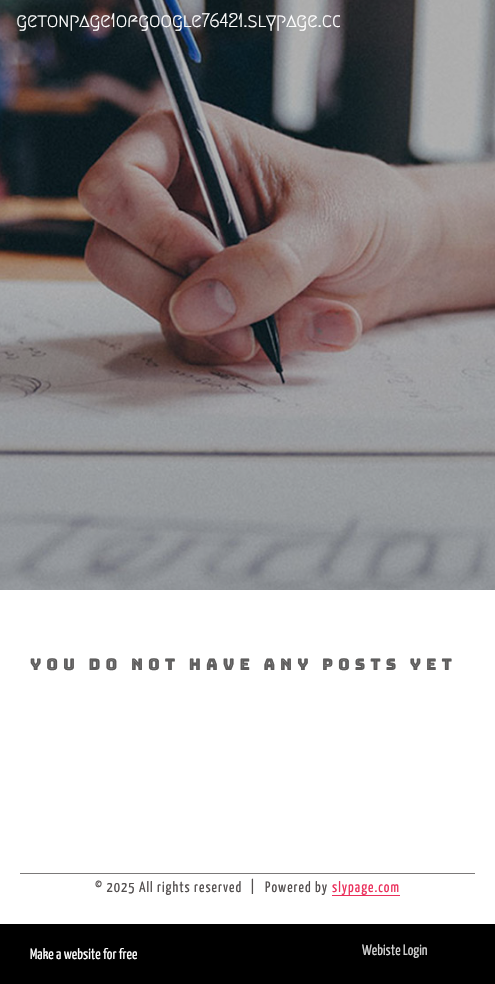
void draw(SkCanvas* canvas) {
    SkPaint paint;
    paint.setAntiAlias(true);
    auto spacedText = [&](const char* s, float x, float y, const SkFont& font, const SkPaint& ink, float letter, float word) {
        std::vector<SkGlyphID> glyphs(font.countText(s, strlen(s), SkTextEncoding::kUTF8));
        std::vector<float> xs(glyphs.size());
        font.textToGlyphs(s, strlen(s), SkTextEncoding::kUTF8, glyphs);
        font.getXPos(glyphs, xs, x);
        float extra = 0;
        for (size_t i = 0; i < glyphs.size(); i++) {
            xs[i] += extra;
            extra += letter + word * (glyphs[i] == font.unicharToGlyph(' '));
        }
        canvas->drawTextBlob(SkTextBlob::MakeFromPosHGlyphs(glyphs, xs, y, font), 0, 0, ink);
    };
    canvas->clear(0xFFFFFFFF);
    canvas->drawImageRect(SkImages::DeferredFromEncodedData(SkData::MakeFromFileName("img1.png")), SkRect::MakeXYWH(0, 0, 495, 590), SkSamplingOptions());
    canvas->save();
    canvas->clipRect(SkRect::MakeXYWH(12, 7, 328, 60));
    SkFont font1(fontMgr->matchFamilyStyle("Megrim", SkFontStyle::Bold()), 19);
    font1.setSubpixel(true);
    paint.setColor(0xFFFFFFFF);
    canvas->drawString("getonpage1ofgoogle76421.slypage.co", 16, 27, font1, paint);
    canvas->restore();
    SkFont font2(fontMgr->matchFamilyStyle("Bungee Inline", SkFontStyle::Normal()), 16);
    font2.setSubpixel(true);
    paint.setColor(0xFF5D5C5C);
    spacedText("You do not have any posts yet", 30, 670, font2, paint, 5, 0);
    paint.setColor(0xFF7B7979);
    canvas->drawRect(SkRect::MakeXYWH(20, 873, 455, 1), paint);
    SkFont font3(fontMgr->matchFamilyStyle("Yanone Kaffeesatz", SkFontStyle::Normal()), 15);
    font3.setSubpixel(true);
    paint.setColor(0xFF524E4E);
    spacedText("© 2025 All rights reserved", 95, 892, font3, paint, 1, 0);
    spacedText("|", 250, 891, font3, paint, 1, 0);
    spacedText("Powered by", 265, 892, font3, paint, 1, 0);
    paint.setColor(0xFFEB2F5B);
    spacedText("slypage.com", 332, 892, font3, paint, 1, 0);
    paint.setColor(0xFFEA2E5A);
    canvas->drawRect(SkRect::MakeXYWH(332, 895, 68, 1), paint);
    paint.setColor(0xFF000000);
    canvas->drawRect(SkRect::MakeXYWH(0, 924, 495, 60), paint);
    paint.setColor(0xFFFFFFFF);
    canvas->drawString("Make a website for free", 30, 959, font3, paint);
    paint.setColor(0xFFD4D4D4);
    canvas->drawString("Webiste Login", 362, 955, font3, paint);
}
